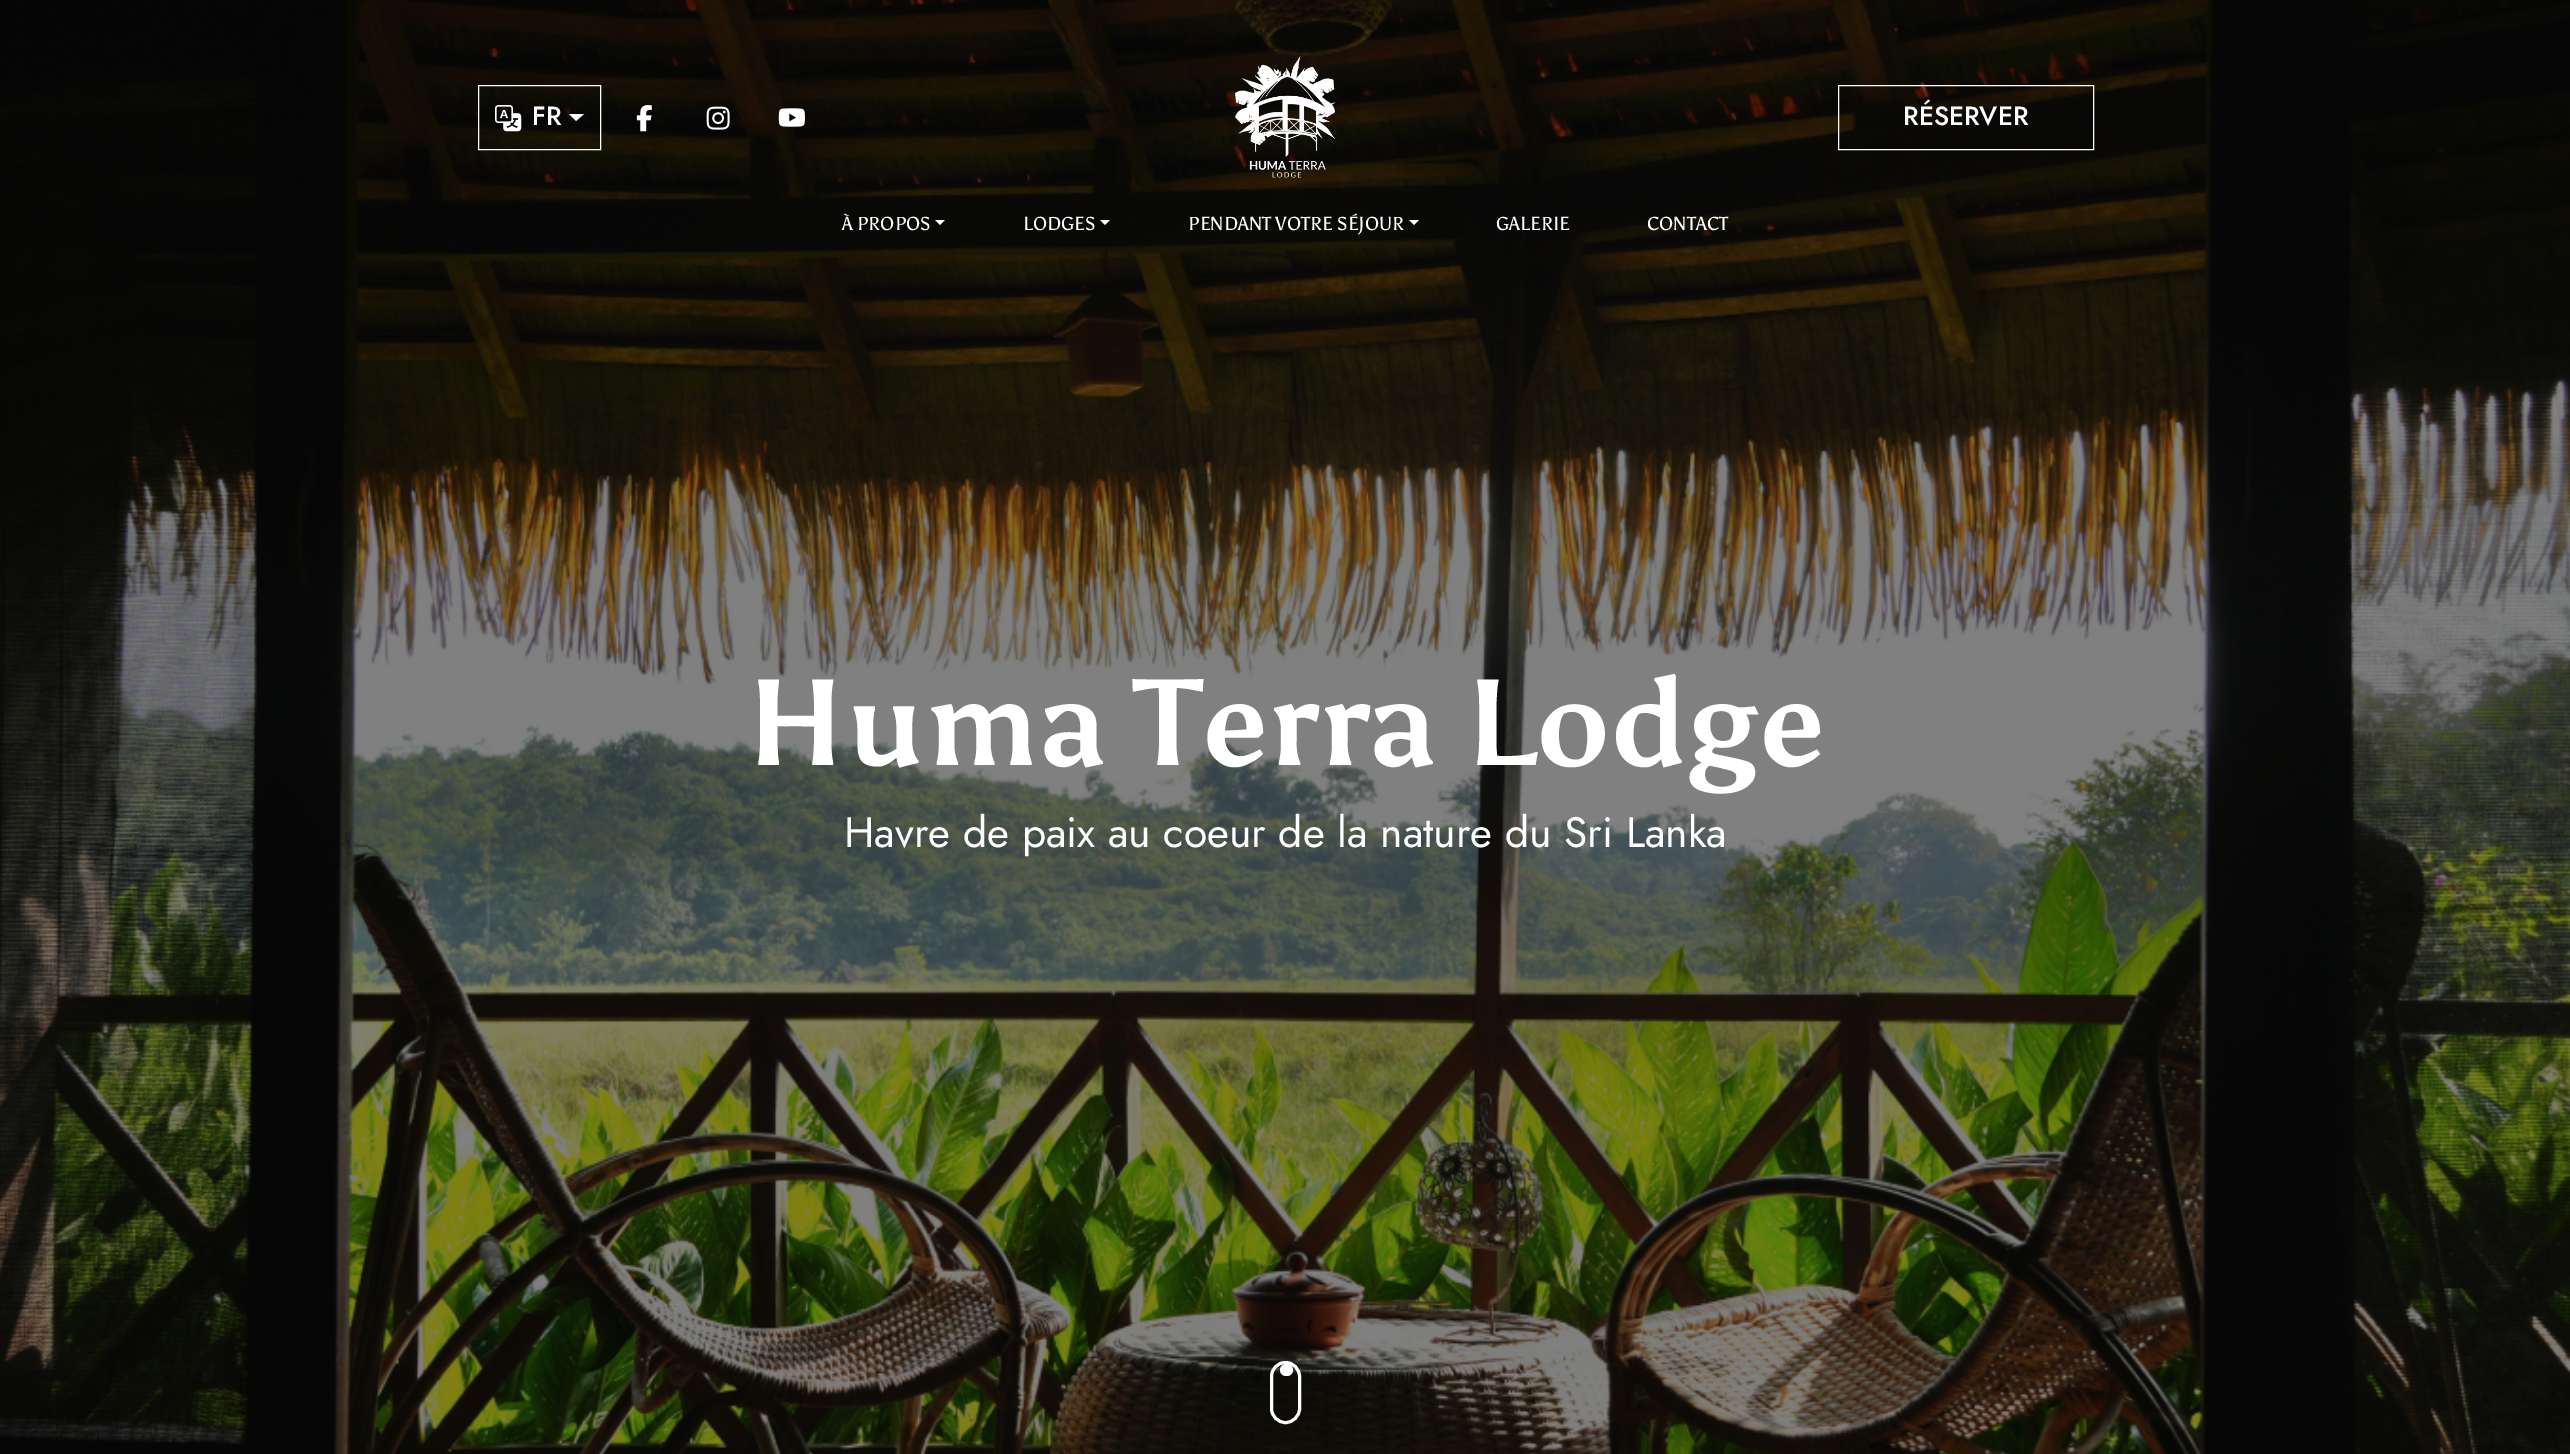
%!PS
<< /PageSize [2570 1454] >> setpagedevice
/rgb { 3 { 255 div 3 1 roll } repeat setrgbcolor } def
/font { [ exch dup neg 0 0 3 -1 roll 0 0 ] selectfont } def
/text { moveto show } def
/roundrect { 5 dict begin { /r /h /w /y /x } { exch def } forall
  x r add y moveto x w add y 2 copy h add r arct x w add y h add x 1 index r arct
  x y h add x y r arct x y 2 copy exch w add exch r arct closepath end } def
/picture { 5 dict begin { /h /w /y /x /name } { exch def } forall
  gsave x y translate w h scale
  w h 8 [w 0 0 h 0 0] name (r) file false 3 colorimage grestore end } def
0 1454 translate 1 -1 scale
4 setmiterlimit
255 255 255 rgb
0 0 2570 1454 rectfill
(img_01.rgb) 0 0 2570 1454 picture
478.5 85.5 122 64 rectstroke
(img_02.rgb) 495 105 27 27 picture
569 114 moveto 15 0 rlineto -8 7 rlineto closepath fill
(img_03.rgb) 636 105 16 27 picture
(img_04.rgb) 706 106 24 24 picture
(img_05.rgb) 778 108 27 19 picture
(img_06.rgb) 1235 56 100 122 picture
1838.5 85.5 255 64 rectstroke
935 220 moveto 10 0 rlineto -5 5 rlineto closepath fill
1100 220 moveto 10 0 rlineto -5 5 rlineto closepath fill
1409 220 moveto 10 0 rlineto -5 5 rlineto closepath fill
3 setlinewidth
1271.5 1362.5 28 60 14 roundrect stroke
1280 1364 13 12 6 roundrect fill
/Jost-Medium 26.25 font
(FR) 532 125 text
(RÉSERVER) 1903 125 text
/Asul-Regular 18.75 font
(À PROPOS) 842 230 text
(LODGES) 1023 230 text
(PENDANT VOTRE SÉJOUR) 1188 230 text
(GALERIE) 1496 230 text
(CONTACT) 1647 230 text
/Asul-Bold 122.5 font
(Huma Terra Lodge) 745 765 text
/Jost-Regular 42.5 font
(Havre de paix au coeur de la nature du Sri Lanka) 844 847 text
showpage
